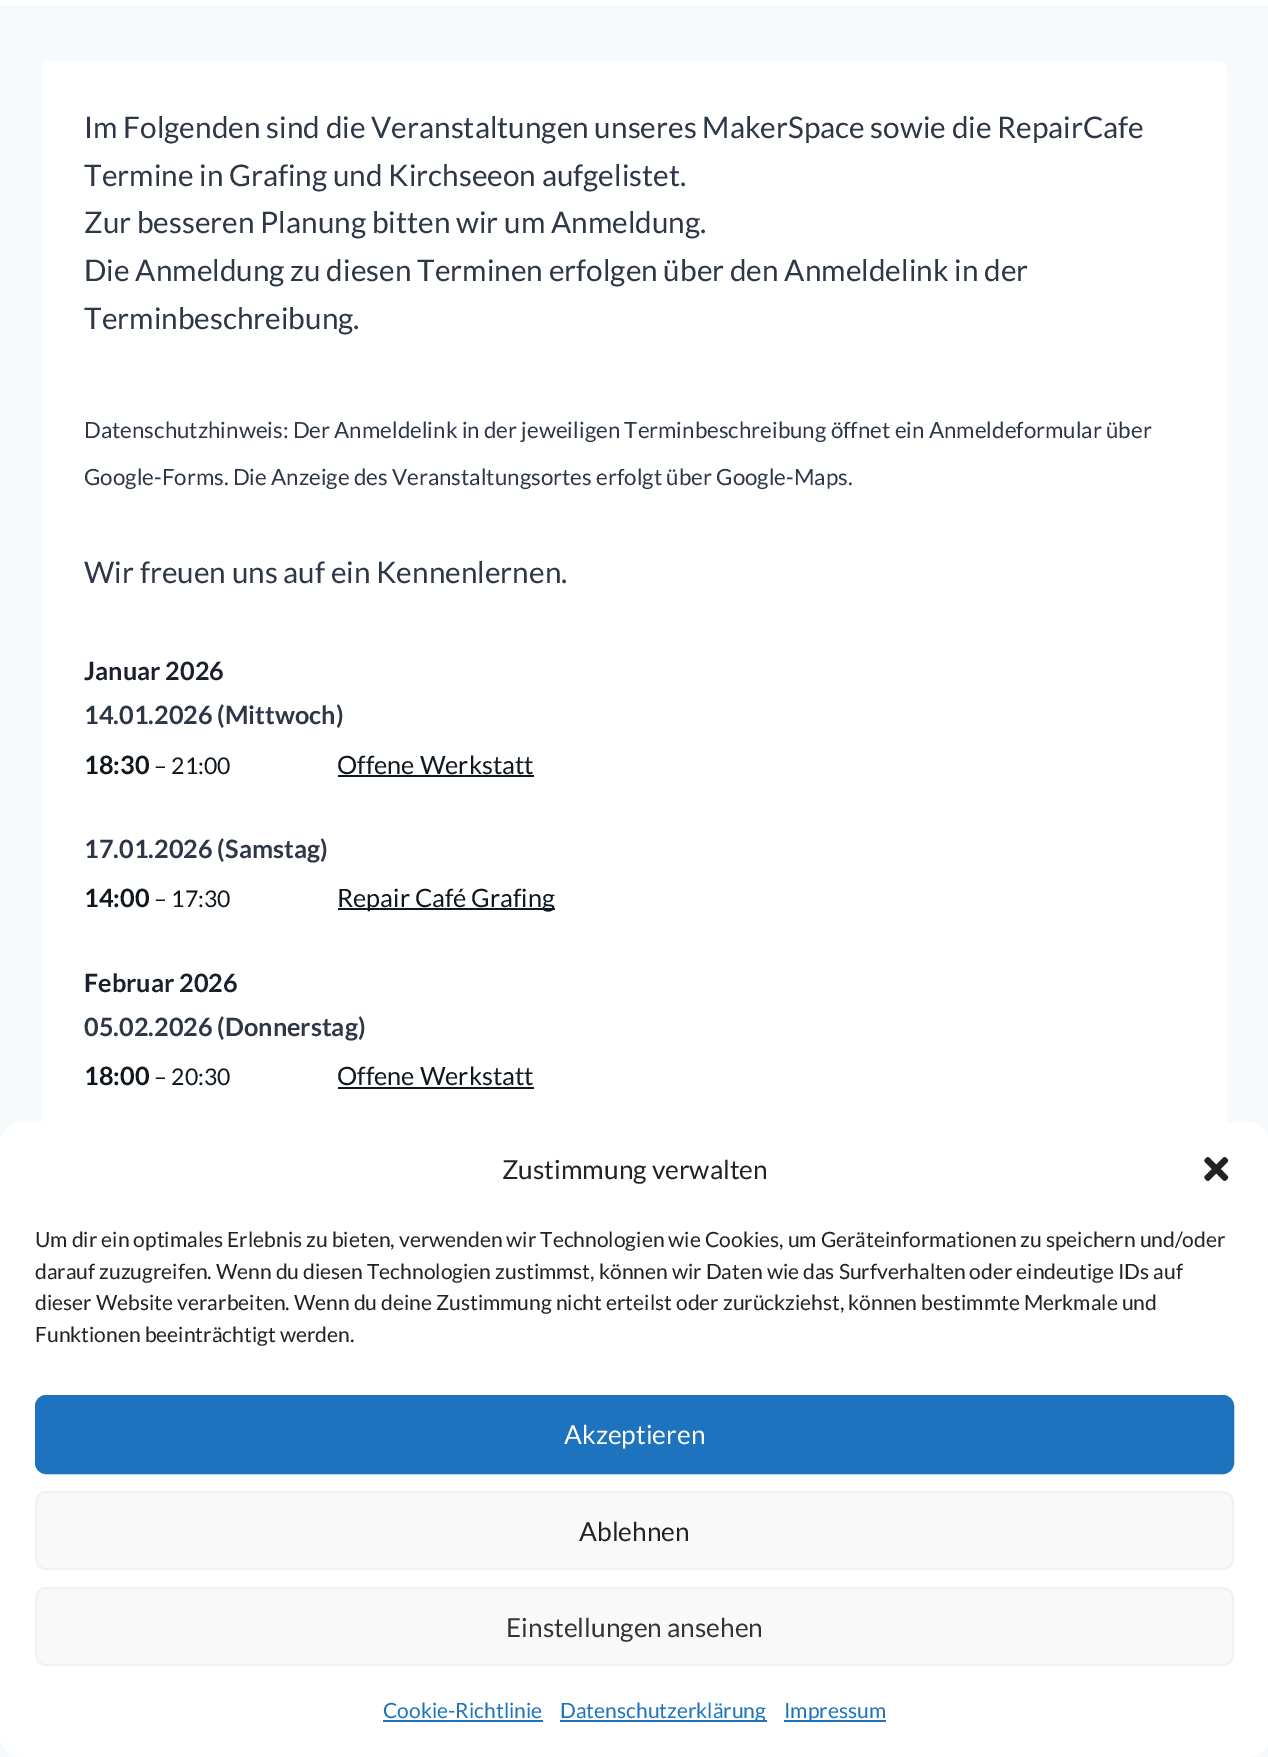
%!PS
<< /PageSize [1268 1757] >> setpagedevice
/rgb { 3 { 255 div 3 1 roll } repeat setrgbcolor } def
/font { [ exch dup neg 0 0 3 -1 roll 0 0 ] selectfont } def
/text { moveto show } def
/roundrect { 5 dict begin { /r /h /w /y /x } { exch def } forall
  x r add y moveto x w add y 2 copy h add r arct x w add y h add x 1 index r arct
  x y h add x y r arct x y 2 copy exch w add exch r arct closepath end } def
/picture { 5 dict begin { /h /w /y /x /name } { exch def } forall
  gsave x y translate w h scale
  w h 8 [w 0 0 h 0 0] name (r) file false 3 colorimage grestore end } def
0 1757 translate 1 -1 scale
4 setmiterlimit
247 250 252 rgb
0 0 1268 1757 rectfill
255 255 255 rgb
0 0 1268 5 rectfill
42 61 1185 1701 7 roundrect fill
16 24 31 rgb
338 775 196 2 rectfill
338 908 217 2 rectfill
338 1087 196 2 rectfill
255 255 255 rgb
0 1122 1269 635 21 roundrect fill
(img_01.rgb) 1204 1157 25 24 picture
30 115 190 rgb
36 1396 1197 77 10 roundrect gsave fill grestore
2 setlinewidth
stroke
249 249 249 rgb
36 1492 1197 77 10 roundrect gsave fill grestore
242 242 242 rgb
stroke
249 249 249 rgb
36 1588 1197 77 10 roundrect gsave fill grestore
242 242 242 rgb
stroke
30 115 190 rgb
383 1720 160 2 rectfill
560 1720 207 2 rectfill
784 1720 102 2 rectfill
/Lato-Regular 29.75 font
45 55 72 rgb
(Im Folgenden sind die Veranstaltungen unseres MakerSpace sowie die RepairCafe) 84 138 text
(Termine in Grafing und Kirchseeon aufgelistet.) 84 186 text
(Zur besseren Planung bitten wir um Anmeldung.) 84 233 text
(Die Anmeldung zu diesen Terminen erfolgen über den Anmeldelink in der) 84 281 text
(Terminbeschreibung.) 84 329 text
/Lato-Regular 22.3 font
(Datenschutzhinweis: Der Anmeldelink in der jeweiligen Terminbeschreibung öffnet ein Anmeldeformular über) 84 438 text
(Google-Forms. Die Anzeige des Veranstaltungsortes erfolgt über Google-Maps.) 84 485 text
/Lato-Regular 29.75 font
(Wir freuen uns auf ein Kennenlernen.) 84 583 text
/Lato-Bold 25.25 font
26 32 44 rgb
(Januar 2026) 84 680 text
45 55 72 rgb
(14.01.2026 \(Mittwoch\)) 84 724 text
16 24 31 rgb
(18:30) 84 774 text
/Lato-Regular 23 font
(– 21:00) 154 774 text
/Lato-Regular 25.25 font
(Offene Werkstatt) 337 774 text
/Lato-Bold 25.25 font
45 55 72 rgb
(17.01.2026 \(Samstag\)) 84 858 text
16 24 31 rgb
(14:00) 84 907 text
/Lato-Regular 23 font
(– 17:30) 154 907 text
/Lato-Regular 25.25 font
(Repair Café Grafing) 337 907 text
/Lato-Bold 25.25 font
26 32 44 rgb
(Februar 2026) 84 992 text
45 55 72 rgb
(05.02.2026 \(Donnerstag\)) 84 1036 text
16 24 31 rgb
(18:00) 84 1085 text
/Lato-Regular 23 font
(– 20:30) 154 1085 text
/Lato-Regular 25.25 font
(Offene Werkstatt) 337 1085 text
/Lato-Regular 26.25 font
34 34 34 rgb
(Zustimmung verwalten) 502 1179 text
/Lato-Regular 21 font
(Um dir ein optimales Erlebnis zu bieten, verwenden wir Technologien wie Cookies, um Geräteinformationen zu speichern und/oder) 35 1247 text
(darauf zuzugreifen. Wenn du diesen Technologien zustimmst, können wir Daten wie das Surfverhalten oder eindeutige IDs auf) 35 1279 text
(dieser Website verarbeiten. Wenn du deine Zustimmung nicht erteilst oder zurückziehst, können bestimmte Merkmale und) 35 1310 text
(Funktionen beeinträchtigt werden.) 35 1342 text
/Lato-Regular 26.25 font
255 255 255 rgb
(Akzeptieren) 564 1444 text
34 34 34 rgb
(Ablehnen) 579 1541 text
51 51 51 rgb
(Einstellungen ansehen) 506 1637 text
/Lato-Regular 21 font
30 115 190 rgb
(Cookie-Richtlinie) 383 1718 text
(Datenschutzerklärung) 560 1718 text
(Impressum) 784 1718 text
showpage
